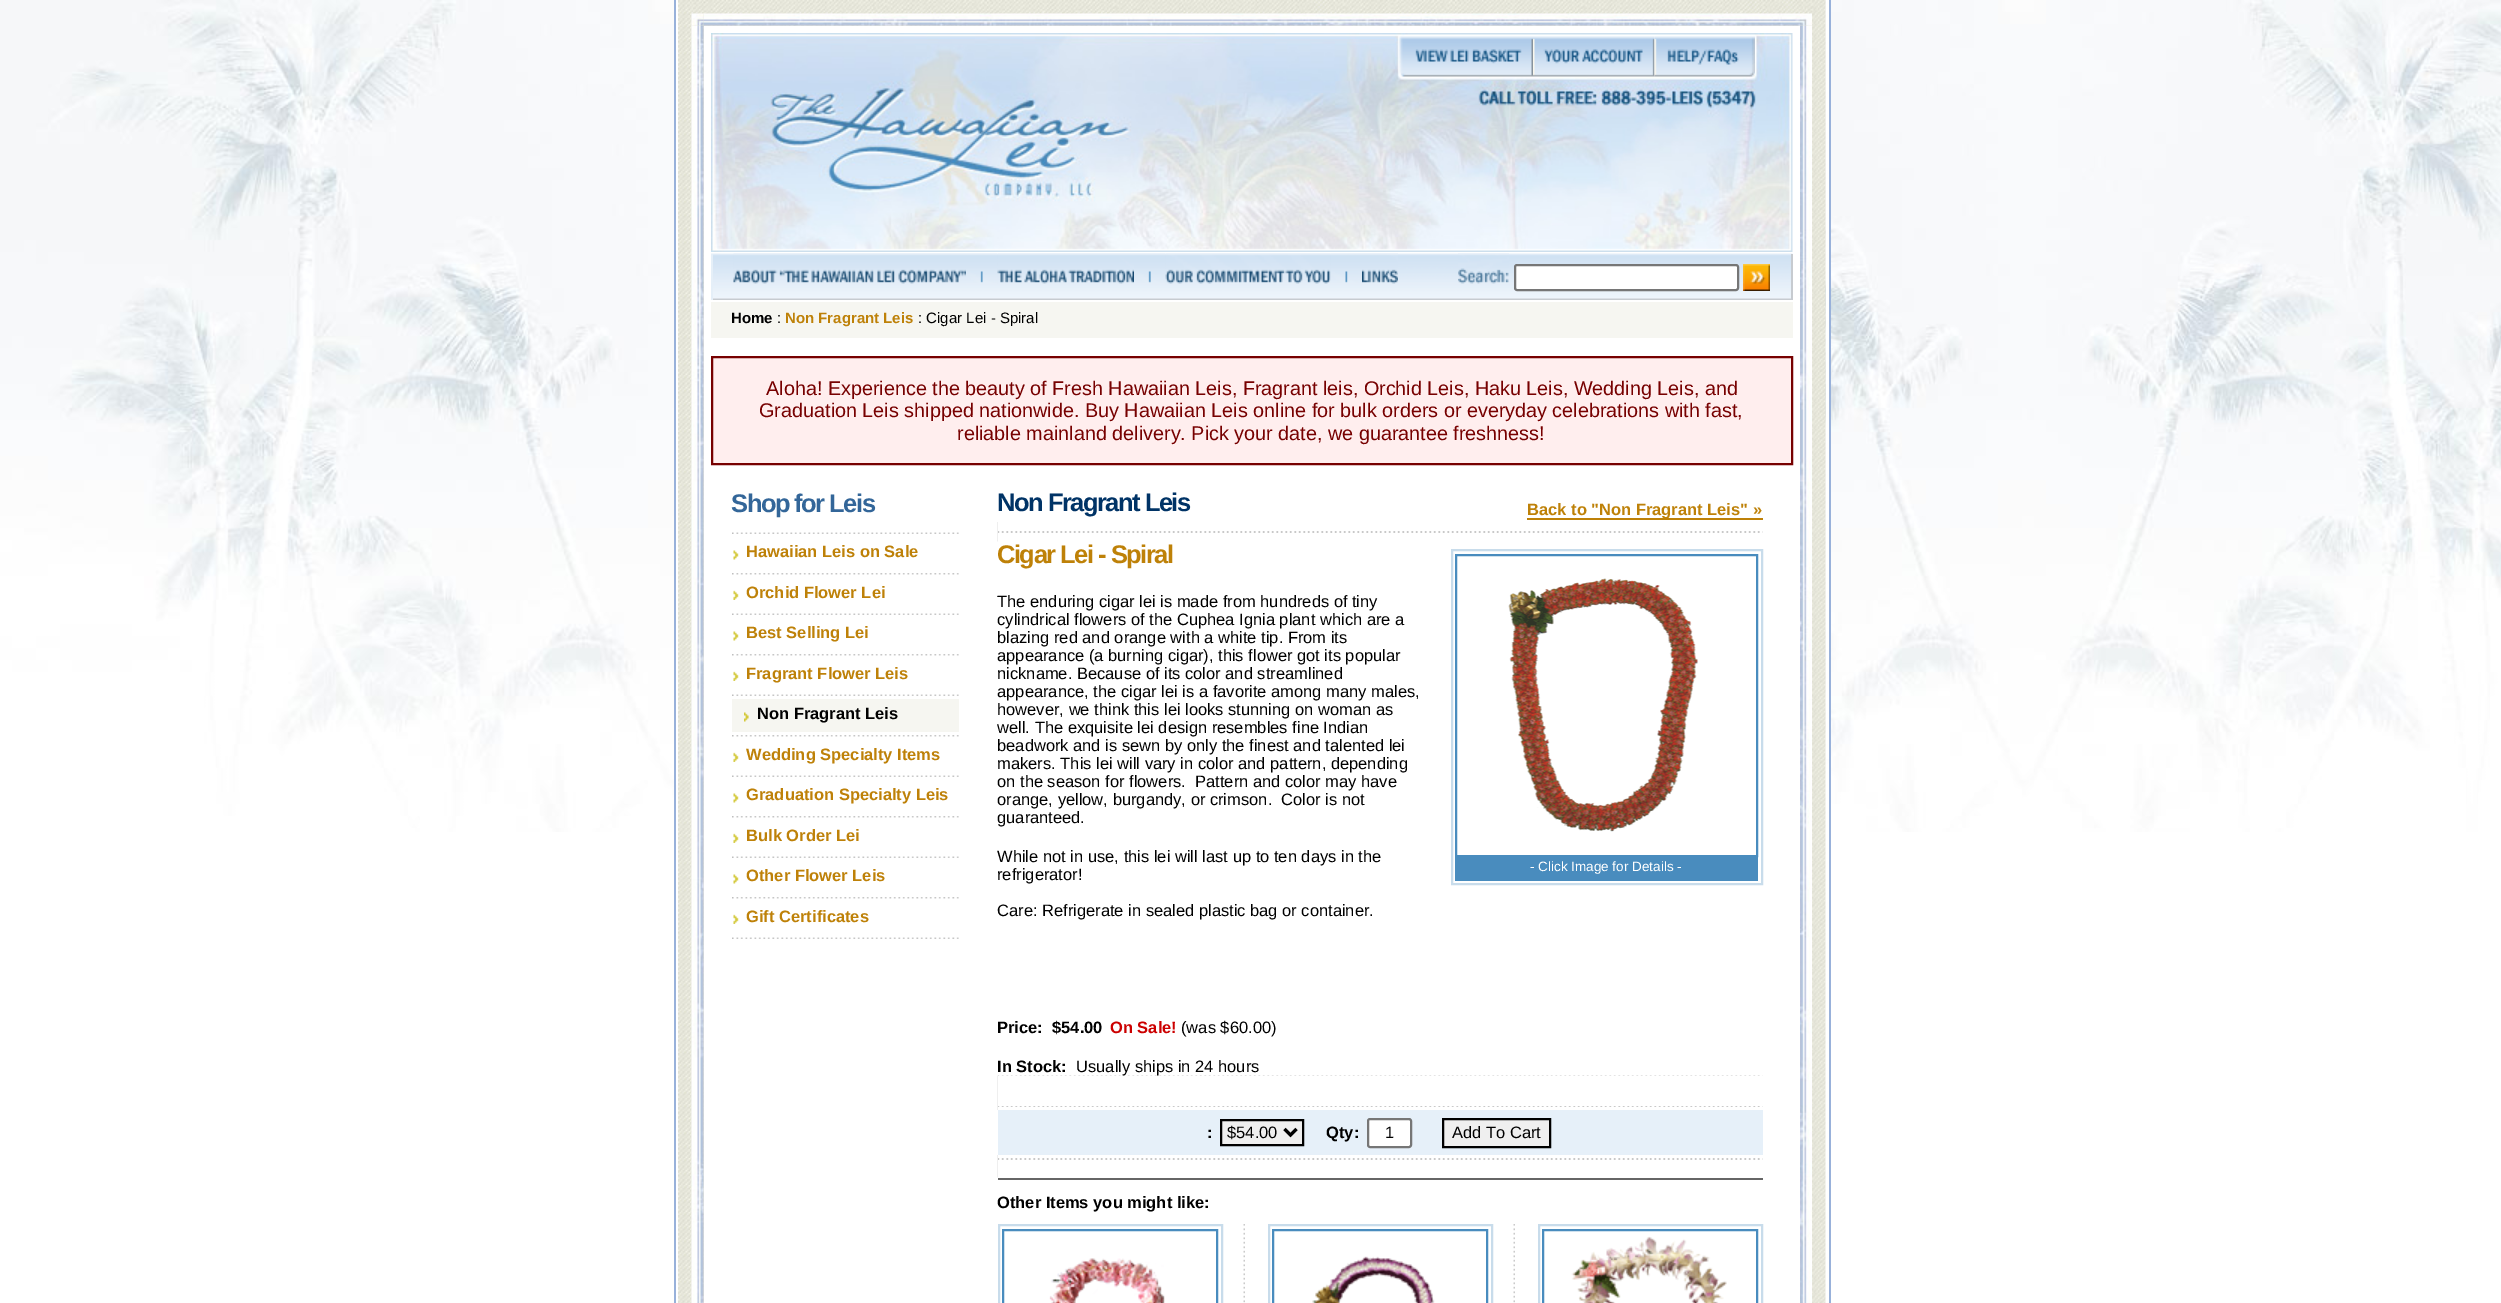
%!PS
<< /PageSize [2501 1303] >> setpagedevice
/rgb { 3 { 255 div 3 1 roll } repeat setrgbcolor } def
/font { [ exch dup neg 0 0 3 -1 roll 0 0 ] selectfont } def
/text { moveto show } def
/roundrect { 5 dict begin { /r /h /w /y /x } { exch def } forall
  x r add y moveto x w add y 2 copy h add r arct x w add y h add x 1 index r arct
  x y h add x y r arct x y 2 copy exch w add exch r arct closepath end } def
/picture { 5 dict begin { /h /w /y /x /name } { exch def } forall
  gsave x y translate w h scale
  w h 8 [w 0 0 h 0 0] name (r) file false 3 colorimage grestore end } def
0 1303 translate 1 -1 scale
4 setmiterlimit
255 255 255 rgb
0 0 2501 1303 rectfill
(img_01.rgb) 0 0 2501 832 picture
676 0 2 785 rectfill
152 177 218 rgb
674 0 2 1303 rectfill
(img_02.rgb) 678 0 1148 1303 picture
(img_04.rgb) 703 13 1097 13 picture
(img_06.rgb) 691 25 13 1278 picture
(img_03.rgb) 691 13 13 13 picture
(img_34.rgb) 1800 25 12 1278 picture
(img_05.rgb) 1800 13 12 13 picture
255 255 255 rgb
704 26 1096 1277 rectfill
(img_07.rgb) 711 33 1082 219 picture
(img_08.rgb) 1399 36 134 41 picture
(img_09.rgb) 1533 36 122 41 picture
(img_10.rgb) 1654 36 101 41 picture
(img_11.rgb) 711 253 1082 47 picture
199 203 208 rgb
1791 254 2 46 rectfill
229 239 248 rgb
711 254 2 46 rectfill
(img_12.rgb) 733 253 233 31 picture
(img_13.rgb) 966 253 31 30 picture
(img_14.rgb) 997 253 137 31 picture
(img_15.rgb) 1134 253 31 30 picture
(img_16.rgb) 1165 253 166 31 picture
(img_17.rgb) 1330 253 32 30 picture
(img_18.rgb) 1362 253 36 31 picture
(img_19.rgb) 1458 253 51 31 picture
255 255 255 rgb
1515 265 223 25 2 roundrect gsave fill grestore
118 118 118 rgb
2 setlinewidth
stroke
(img_20.rgb) 1743 264 27 27 picture
246 246 241 rgb
711 302 1082 36 rectfill
255 238 238 rgb
712 357 moveto 1080 0 rlineto 0 107 rlineto -1080 0 rlineto closepath gsave fill grestore
119 0 0 rgb
stroke
(img_21.rgb) 732 532 227 2 picture
(img_22.rgb) 733 550 6 10 picture
(img_23.rgb) 732 573 227 2 picture
(img_24.rgb) 733 590 6 10 picture
(img_21.rgb) 732 613 227 2 picture
(img_22.rgb) 733 631 6 10 picture
(img_23.rgb) 732 654 227 2 picture
(img_24.rgb) 733 671 6 10 picture
(img_21.rgb) 732 694 227 2 picture
246 246 241 rgb
732 699 227 33 rectfill
(img_25.rgb) 744 712 5 10 picture
(img_23.rgb) 732 735 227 2 picture
(img_24.rgb) 733 752 6 10 picture
(img_21.rgb) 732 775 227 2 picture
(img_22.rgb) 733 793 6 10 picture
(img_23.rgb) 732 816 227 2 picture
(img_24.rgb) 733 833 6 10 picture
(img_21.rgb) 732 856 227 2 picture
(img_22.rgb) 733 874 6 10 picture
(img_23.rgb) 732 897 227 2 picture
(img_24.rgb) 733 914 6 10 picture
(img_21.rgb) 732 937 227 2 picture
190 129 8 rgb
1527 518 236 2 rectfill
(img_26.rgb) 997 522 766 20 picture
255 255 255 rgb
998 522 765 9 rectfill
998 533 765 9 rectfill
200 220 235 rgb
1452 550 310 334 rectstroke
73 140 190 rgb
1456 555 301 301 rectstroke
(img_27.rgb) 1508 578 190 254 picture
1455 857 303 24 rectfill
(img_28.rgb) 997 1075 766 35 picture
255 255 255 rgb
998 1076 765 30 rectfill
998 1107 765 3 rectfill
230 240 249 rgb
998 1110 765 45 rectfill
239 239 239 rgb
1221 1120 moveto 82 0 rlineto 0 25 rlineto -82 0 rlineto closepath gsave fill grestore
0 0 0 rgb
stroke
3 setlinewidth
1284.5 1129 moveto 6 6 rlineto 6 -6 rlineto stroke
255 255 255 rgb
1368 1119 43 28 2 roundrect gsave fill grestore
118 118 118 rgb
2 setlinewidth
stroke
239 239 239 rgb
1443 1119 moveto 107 0 rlineto 0 28 rlineto -107 0 rlineto closepath gsave fill grestore
0 0 0 rgb
stroke
(img_29.rgb) 997 1155 766 23 picture
255 255 255 rgb
998 1155 765 3 rectfill
998 1160 765 18 rectfill
102 102 102 rgb
998 1178 765 2 rectfill
200 220 235 rgb
999 1225 223 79 rectstroke
73 140 190 rgb
1003 1230 214 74 rectstroke
(img_30.rgb) 1049 1258 116 45 picture
(img_31.rgb) 1243 1224 2 79 picture
200 220 235 rgb
1269 1225 223 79 rectstroke
73 140 190 rgb
1273 1230 214 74 rectstroke
(img_32.rgb) 1312 1256 123 47 picture
(img_31.rgb) 1513 1224 2 79 picture
200 220 235 rgb
1539 1225 223 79 rectstroke
73 140 190 rgb
1543 1230 214 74 rectstroke
(img_33.rgb) 1571 1236 156 67 picture
255 255 255 rgb
1826 0 3 759 rectfill
152 177 218 rgb
1829 0 2 1303 rectfill
/LiberationSans-Bold 15 font
0 0 0 rgb
(Home) 731 323 text
/LiberationSans-Regular 15 font
(:) 777 323 text
/LiberationSans-Bold 15 font
190 129 8 rgb
(Non Fragrant Leis) 785 323 text
/LiberationSans-Regular 15 font
0 0 0 rgb
(: Cigar Lei - Spiral) 918 323 text
/LiberationSans-Regular 19.8 font
119 0 0 rgb
(Aloha! Experience the beauty of Fresh Hawaiian Leis, Fragrant leis, Orchid Leis, Haku Leis, Wedding Leis, and) 766 395 text
(Graduation Leis shipped nationwide. Buy Hawaiian Leis online for bulk orders or everyday celebrations with fast,) 759 417 text
(reliable mainland delivery. Pick your date, we guarantee freshness!) 957 440 text
/LiberationSans-Bold 25.5 font
51 102 153 rgb
731 512 moveto -1.5 0 (Shop for Leis) ashow
/LiberationSans-Bold 16.5 font
190 129 8 rgb
(Hawaiian Leis on Sale) 746 557 text
(Orchid Flower Lei) 746 598 text
(Best Selling Lei) 746 638 text
(Fragrant Flower Leis) 746 679 text
0 0 0 rgb
(Non Fragrant Leis) 757 719 text
190 129 8 rgb
(Wedding Specialty Items) 746 760 text
(Graduation Specialty Leis) 746 800 text
(Bulk Order Lei) 746 841 text
(Other Flower Leis) 746 881 text
(Gift Certificates) 746 922 text
/LiberationSans-Bold 25.5 font
0 51 102 rgb
997 511 moveto -1.5 0 (Non Fragrant Leis) ashow
/LiberationSans-Bold 16.5 font
190 129 8 rgb
(Back to "Non Fragrant Leis" ») 1527 515 text
/LiberationSans-Bold 25.5 font
997 563 moveto -1.5 0 (Cigar Lei - Spiral) ashow
/LiberationSans-Regular 16.5 font
0 0 0 rgb
(The enduring cigar lei is made from hundreds of tiny) 997 607 text
(cylindrical flowers of the Cuphea Ignia plant which are a) 997 625 text
(blazing red and orange with a white tip. From its) 997 643 text
(appearance \(a burning cigar\), this flower got its popular) 997 661 text
(nickname. Because of its color and streamlined) 997 679 text
(appearance, the cigar lei is a favorite among many males,) 997 697 text
(however, we think this lei looks stunning on woman as) 997 715 text
(well. The exquisite lei design resembles fine Indian) 997 733 text
(beadwork and is sewn by only the finest and talented lei) 997 751 text
(makers. This lei will vary in color and pattern, depending) 997 769 text
(on the season for flowers.  Pattern and color may have) 997 787 text
(orange, yellow, burgandy, or crimson.  Color is not) 997 805 text
(guaranteed.) 997 823 text
(While not in use, this lei will last up to ten days in the) 997 862 text
(refrigerator!) 997 880 text
(Care: Refrigerate in sealed plastic bag or container.) 997 916 text
/LiberationSans-Regular 13.5 font
255 255 255 rgb
(- Click Image for Details -) 1530 871 text
/LiberationSans-Bold 16.5 font
0 0 0 rgb
(Price:) 997 1033 text
($54.00) 1052 1033 text
204 0 0 rgb
(On Sale!) 1110 1033 text
/LiberationSans-Regular 16.5 font
0 0 0 rgb
(\(was $60.00\)) 1181 1033 text
/LiberationSans-Bold 16.5 font
(In Stock:) 997 1072 text
/LiberationSans-Regular 16.5 font
(Usually ships in 24 hours) 1076 1072 text
/LiberationSans-Bold 16.5 font
(:) 1207 1138 text
/LiberationSans-Regular 16.5 font
($54.00) 1227 1138 text
/LiberationSans-Bold 16.5 font
(Qty:) 1326 1138 text
/LiberationSans-Regular 16.5 font
(1) 1385 1138 text
(Add To Cart) 1452 1138 text
/LiberationSans-Bold 16.5 font
(Other Items you might like:) 997 1208 text
showpage
